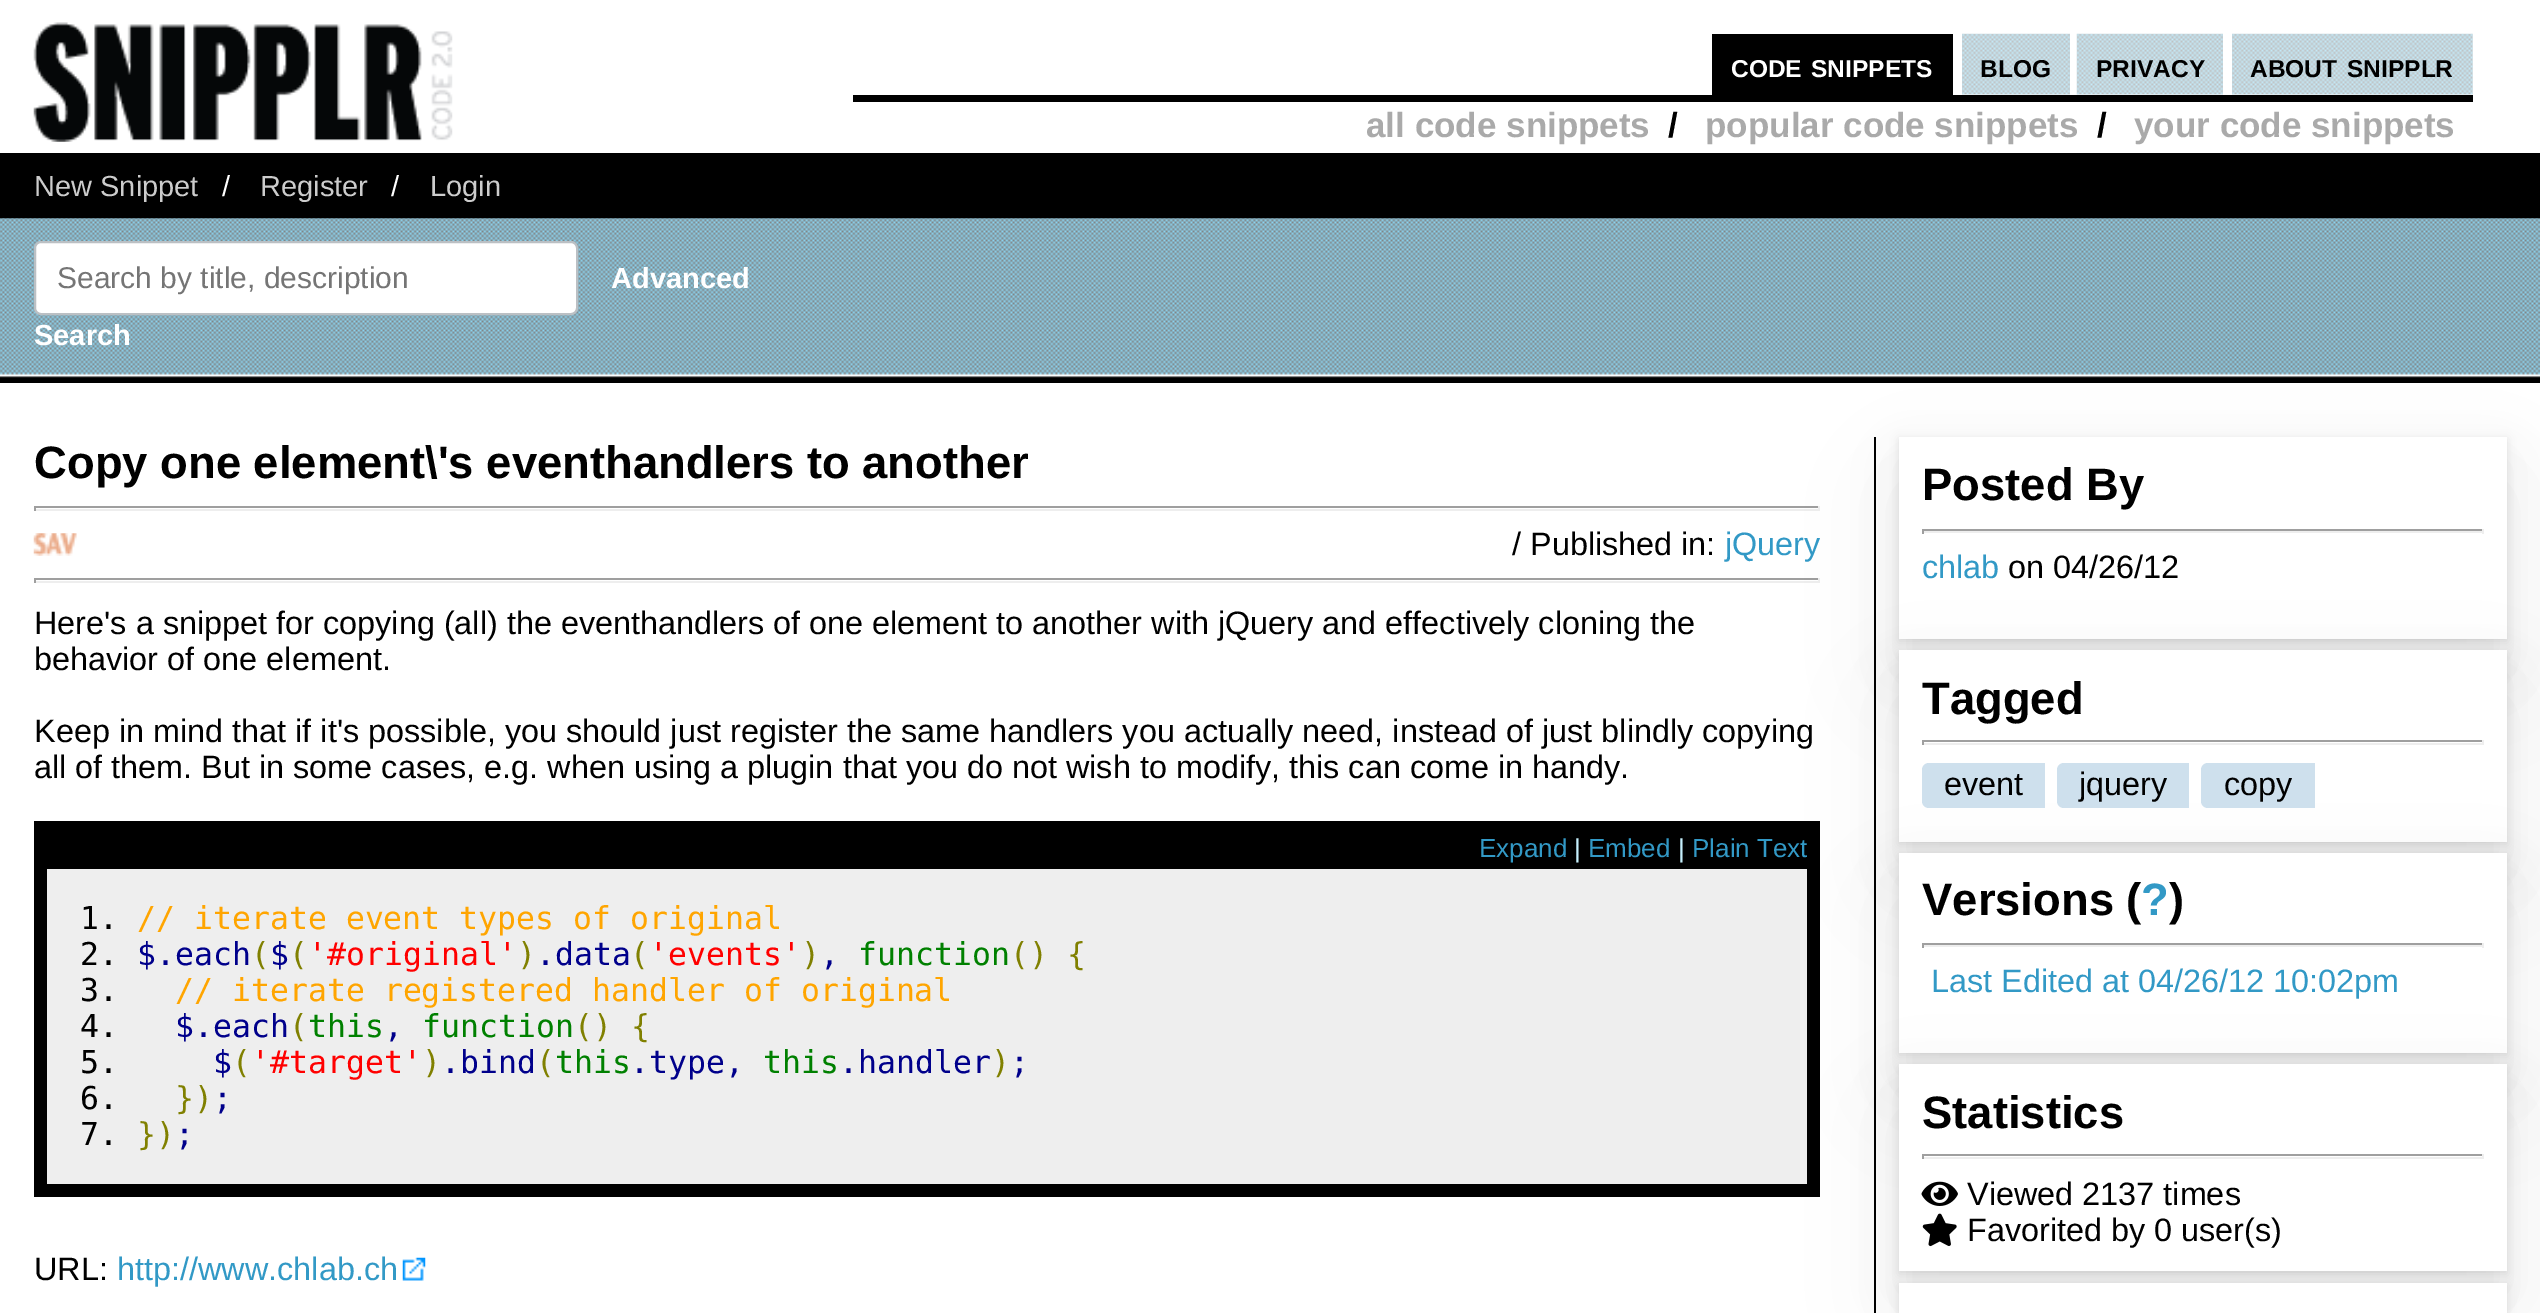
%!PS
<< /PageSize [2540 1313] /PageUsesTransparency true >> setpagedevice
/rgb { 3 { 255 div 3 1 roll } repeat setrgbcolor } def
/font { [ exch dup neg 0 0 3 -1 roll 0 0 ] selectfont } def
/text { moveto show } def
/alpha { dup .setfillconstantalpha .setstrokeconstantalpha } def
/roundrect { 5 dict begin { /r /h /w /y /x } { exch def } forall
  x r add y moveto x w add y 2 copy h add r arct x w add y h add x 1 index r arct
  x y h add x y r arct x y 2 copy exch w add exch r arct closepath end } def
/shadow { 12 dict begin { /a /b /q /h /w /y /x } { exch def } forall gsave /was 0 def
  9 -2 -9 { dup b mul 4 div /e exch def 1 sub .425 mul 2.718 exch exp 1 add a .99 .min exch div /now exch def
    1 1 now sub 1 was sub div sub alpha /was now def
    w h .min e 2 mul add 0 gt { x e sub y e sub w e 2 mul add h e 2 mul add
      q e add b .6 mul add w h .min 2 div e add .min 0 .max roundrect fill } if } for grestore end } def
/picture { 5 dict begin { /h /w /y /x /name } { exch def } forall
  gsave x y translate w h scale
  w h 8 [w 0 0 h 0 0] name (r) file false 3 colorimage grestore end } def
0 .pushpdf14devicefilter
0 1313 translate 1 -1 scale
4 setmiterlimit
0 0 0 rgb
0 0 2540 1313 rectfill
255 255 255 rgb
0 0 2540 153 rectfill
(img_01.rgb) 33 22 420 120 picture
0 0 0 rgb
853 95 1620 7 rectfill
(img_02.rgb) 1962 33 108 62 picture
(img_03.rgb) 2076 33 147 62 picture
(img_04.rgb) 2232 33 241 62 picture
1712 34 241 61 rectfill
(img_05.rgb) 0 218 2540 160 picture
255 255 255 rgb
35 242 542 72 6 roundrect gsave fill grestore
187 192 196 rgb
2 setlinewidth
stroke
255 255 255 rgb
0 383 2540 930 rectfill
0 0 0 rgb
1874 437 2 876 rectfill
159 159 159 rgb
34 506 1786 2 rectfill
238 238 238 rgb
1818 506 2 5 rectfill
34 509 1786 2 rectfill
159 159 159 rgb
34 506 2 5 rectfill
(img_06.rgb) 33 533 44 23 picture
34 578 1786 2 rectfill
238 238 238 rgb
1818 578 2 5 rectfill
34 581 1786 2 rectfill
159 159 159 rgb
34 578 2 5 rectfill
0 0 0 rgb
34 821 1786 376 rectfill
238 238 238 rgb
47 869 1760 315 rectfill
(img_07.rgb) 402 1257 24 24 picture
0 0 0 rgb
1899 439 608 202 0 4.5 0.1 shadow
1899 482 608 202 0 54 0.05 shadow
1899 459 608 203 0 28 0.05 shadow
255 255 255 rgb
1899 437 608 202 rectfill
159 159 159 rgb
1922 529 562 2 rectfill
0 0 0 rgb
1899 695 608 192 0 54 0.05 shadow
238 238 238 rgb
2482 529 2 5 rectfill
1922 531 562 2 rectfill
159 159 159 rgb
1922 529 2 5 rectfill
0 0 0 rgb
1899 653 608 191 0 4.5 0.1 shadow
1899 673 608 191 0 28 0.05 shadow
255 255 255 rgb
1899 650 608 192 rectfill
0 0 0 rgb
1899 898 608 200 0 54 0.05 shadow
159 159 159 rgb
1922 740 562 2 rectfill
238 238 238 rgb
2482 740 2 5 rectfill
1922 743 562 2 rectfill
159 159 159 rgb
1922 740 2 5 rectfill
0 0 0 rgb
1899 875 608 201 0 28 0.05 shadow
206 224 237 rgb
1929 763 moveto 116 0 rlineto 0 45 rlineto -116 0 rlineto -4 0 -7 -3 -7 -7 rcurveto 0 -31 rlineto 0 -4 3 -7 7 -7 rcurveto closepath fill
2064 763 moveto 125 0 rlineto 0 45 rlineto -125 0 rlineto -4 0 -7 -3 -7 -7 rcurveto 0 -31 rlineto 0 -4 3 -7 7 -7 rcurveto closepath fill
2208 763 moveto 107 0 rlineto 0 45 rlineto -107 0 rlineto -4 0 -7 -3 -7 -7 rcurveto 0 -31 rlineto 0 -4 3 -7 7 -7 rcurveto closepath fill
0 0 0 rgb
1899 855 608 200 0 4.5 0.1 shadow
255 255 255 rgb
1899 853 608 200 rectfill
159 159 159 rgb
1922 943 562 2 rectfill
0 0 0 rgb
1899 1109 608 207 0 54 0.05 shadow
238 238 238 rgb
2482 943 2 5 rectfill
1922 945 562 2 rectfill
159 159 159 rgb
1922 943 2 5 rectfill
0 0 0 rgb
1899 1067 608 207 0 4.5 0.1 shadow
1899 1087 608 207 0 28 0.05 shadow
255 255 255 rgb
1899 1064 608 207 rectfill
159 159 159 rgb
1922 1154 562 2 rectfill
238 238 238 rgb
2482 1154 2 5 rectfill
1922 1157 562 2 rectfill
159 159 159 rgb
1922 1154 2 5 rectfill
(img_08.rgb) 1921 1181 37 25 picture
(img_09.rgb) 1922 1213 35 34 picture
0 0 0 rgb
1899 1285 608 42 0 4.5 0.1 shadow
255 255 255 rgb
1899 1283 608 30 rectfill
/LiberationSans-Bold 24.5 font
(CODE) 1731 77 text
(SNIPPETS) 1811 77 text
/LiberationSans-Bold 35 font
170 170 170 rgb
(all code snippets) 1366 137 text
0 0 0 rgb
(/) 1668 137 text
170 170 170 rgb
(popular code snippets) 1705 137 text
0 0 0 rgb
(/) 2097 137 text
170 170 170 rgb
(your code snippets) 2134 137 text
/LiberationSans-Bold 24.5 font
0 0 0 rgb
(BLOG) 1980 77 text
(PRIVACY) 2096 77 text
(ABOUT) 2250 77 text
(SNIPPLR) 2347 77 text
/LiberationSans-Regular 29 font
204 204 204 rgb
(New Snippet) 34 196 text
255 255 255 rgb
(/) 222 196 text
204 204 204 rgb
(Register) 260 196 text
255 255 255 rgb
(/) 391 196 text
204 204 204 rgb
(Login) 430 196 text
/LiberationSans-Regular 30 font
117 117 117 rgb
(Search by title, description) 57 288 text
/LiberationSans-Bold 29 font
255 255 255 rgb
(Advanced) 611 288 text
(Search) 34 345 text
/LiberationSans-Bold 45.4 font
0 0 0 rgb
(Copy one element\\'s eventhandlers to another) 34 478 text
/LiberationSans-Regular 32.4 font
(/ Published in:) 1512 555 text
50 153 198 rgb
(jQuery) 1725 555 text
0 0 0 rgb
(Here's a snippet for copying \(all\) the eventhandlers of one element to another with jQuery and effectively cloning the) 34 634 text
(behavior of one element.) 34 670 text
(Keep in mind that if it's possible, you should just register the same handlers you actually need, instead of just blindly copying) 34 742 text
(all of them. But in some cases, e.g. when using a plugin that you do not wish to modify, this can come in handy.) 34 778 text
/LiberationSans-Regular 26 font
50 153 198 rgb
(Expand) 1479 857 text
197 239 252 rgb
(|) 1574 857 text
50 153 198 rgb
(Embed) 1588 857 text
197 239 252 rgb
(|) 1678 857 text
50 153 198 rgb
(Plain Text) 1692 857 text
/DejaVuSansMono-Regular 31.5 font
0 0 0 rgb
(1.) 80 929 text
255 165 0 rgb
(// iterate event types of original) 137 929 text
0 0 0 rgb
(2.) 80 965 text
0 0 139 rgb
($.each $) 137 965 text
255 0 0 rgb
('#original') 308 965 text
128 128 0 rgb
(\( \() 251 965 text
(\)) 517 965 text
0 0 139 rgb
(.data) 536 965 text
128 128 0 rgb
(\() 630 965 text
255 0 0 rgb
('events') 649 965 text
128 128 0 rgb
(\)) 801 965 text
0 0 139 rgb
(,) 820 965 text
0 128 0 rgb
(function) 858 965 text
128 128 0 rgb
(\(\) {) 1010 965 text
0 0 0 rgb
(3.) 80 1001 text
255 165 0 rgb
(// iterate registered handler of original) 175 1001 text
0 0 0 rgb
(4.) 80 1037 text
0 0 139 rgb
($.each) 175 1037 text
128 128 0 rgb
(\() 289 1037 text
0 128 0 rgb
(this) 308 1037 text
0 0 139 rgb
(,) 384 1037 text
0 128 0 rgb
(function) 422 1037 text
128 128 0 rgb
(\(\) {) 574 1037 text
0 0 0 rgb
(5.) 80 1073 text
0 0 139 rgb
($) 213 1073 text
128 128 0 rgb
(\() 232 1073 text
(\)) 422 1073 text
0 0 139 rgb
(.bind) 441 1073 text
128 128 0 rgb
(\() 536 1073 text
0 128 0 rgb
(this) 555 1073 text
(this) 763 1073 text
0 0 139 rgb
(.handler ;) 839 1073 text
255 0 0 rgb
('#target') 251 1073 text
0 0 139 rgb
(.type,) 630 1073 text
128 128 0 rgb
(\)) 991 1073 text
0 0 0 rgb
(6.) 80 1109 text
128 128 0 rgb
(}\)) 175 1109 text
0 0 139 rgb
(;) 213 1109 text
0 0 0 rgb
(7.) 80 1145 text
128 128 0 rgb
(}\)) 137 1145 text
0 0 139 rgb
(;) 175 1145 text
/LiberationSans-Regular 32.4 font
0 0 0 rgb
(URL:) 34 1280 text
50 153 198 rgb
(http://www.chlab.ch) 117 1280 text
/LiberationSans-Bold 45.4 font
0 0 0 rgb
(Posted By) 1922 500 text
/LiberationSans-Regular 32.4 font
50 153 198 rgb
(chlab) 1922 578 text
0 0 0 rgb
(on 04/26/12) 2008 578 text
/LiberationSans-Bold 45.4 font
(Tagged) 1922 714 text
/LiberationSans-Regular 32.4 font
(event) 1944 795 text
(jquery) 2079 795 text
(copy) 2224 795 text
/LiberationSans-Bold 45.4 font
(Versions \() 1922 915 text
50 153 198 rgb
(?) 2141 915 text
0 0 0 rgb
(\)) 2169 915 text
/LiberationSans-Regular 32.4 font
50 153 198 rgb
(Last Edited at 04/26/12 10:02pm) 1931 992 text
/LiberationSans-Bold 45.4 font
0 0 0 rgb
(Statistics) 1922 1128 text
/LiberationSans-Regular 32.4 font
(Viewed 2137 times) 1967 1205 text
(Favorited by 0 user\(s\)) 1967 1241 text
.poppdf14devicefilter showpage
